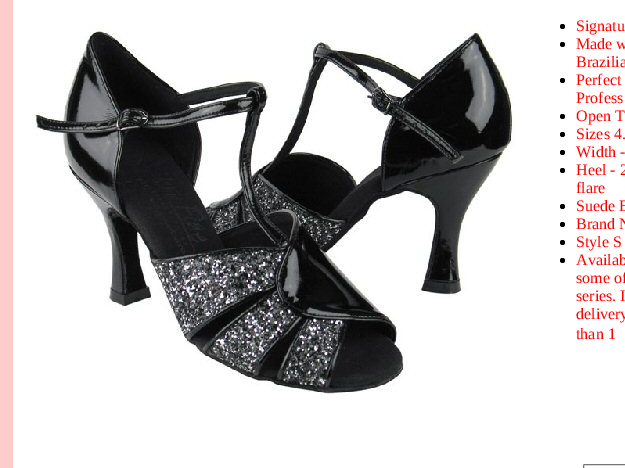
%!PS
<< /PageSize [625 468] >> setpagedevice
/rgb { 3 { 255 div 3 1 roll } repeat setrgbcolor } def
/font { [ exch dup neg 0 0 3 -1 roll 0 0 ] selectfont } def
/text { moveto show } def
/circle { newpath 0 360 arc closepath } def
/roundrect { 5 dict begin { /r /h /w /y /x } { exch def } forall
  x r add y moveto x w add y 2 copy h add r arct x w add y h add x 1 index r arct
  x y h add x y r arct x y 2 copy exch w add exch r arct closepath end } def
/picture { 5 dict begin { /h /w /y /x /name } { exch def } forall
  gsave x y translate w h scale
  w h 8 [w 0 0 h 0 0] name (r) file false 3 colorimage grestore end } def
0 468 translate 1 -1 scale
4 setmiterlimit
255 204 204 rgb
0 0 625 468 rectfill
255 255 255 rgb
13 0 612 468 rectfill
(img_01.rgb) 32 24 483 376 picture
0 0 0 rgb
562.5 26.5 2.5 circle fill
562.5 44.5 2.5 circle fill
562.5 80.5 2.5 circle fill
562.5 116.5 2.5 circle fill
562.5 134.5 2.5 circle fill
562.5 152.5 2.5 circle fill
562.5 170.5 2.5 circle fill
562.5 206.5 2.5 circle fill
562.5 224.5 2.5 circle fill
562.5 242.5 2.5 circle fill
562.5 260.5 2.5 circle fill
118 118 118 rgb
583.5 464.5 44 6 1.5 roundrect stroke
/LiberationSerif-Regular 16 font
255 0 0 rgb
(Signatu) 576 31 text
(Made w) 576 49 text
(Brazilia) 576 67 text
(Perfect) 576 85 text
(Profess) 576 103 text
(Open T) 576 121 text
(Sizes 4.) 576 139 text
(Width -) 576 157 text
(Heel - 2) 576 175 text
(flare) 576 193 text
(Suede B) 576 211 text
(Brand N) 576 229 text
(Style S) 576 247 text
(Availab) 576 265 text
(some of) 576 283 text
(series. I) 576 301 text
(delivery) 576 319 text
(than 1) 576 339 text
showpage
